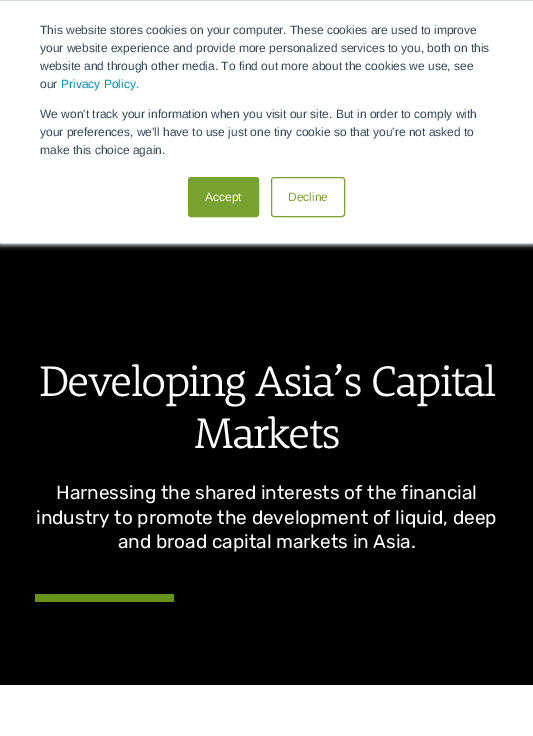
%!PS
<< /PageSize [533 736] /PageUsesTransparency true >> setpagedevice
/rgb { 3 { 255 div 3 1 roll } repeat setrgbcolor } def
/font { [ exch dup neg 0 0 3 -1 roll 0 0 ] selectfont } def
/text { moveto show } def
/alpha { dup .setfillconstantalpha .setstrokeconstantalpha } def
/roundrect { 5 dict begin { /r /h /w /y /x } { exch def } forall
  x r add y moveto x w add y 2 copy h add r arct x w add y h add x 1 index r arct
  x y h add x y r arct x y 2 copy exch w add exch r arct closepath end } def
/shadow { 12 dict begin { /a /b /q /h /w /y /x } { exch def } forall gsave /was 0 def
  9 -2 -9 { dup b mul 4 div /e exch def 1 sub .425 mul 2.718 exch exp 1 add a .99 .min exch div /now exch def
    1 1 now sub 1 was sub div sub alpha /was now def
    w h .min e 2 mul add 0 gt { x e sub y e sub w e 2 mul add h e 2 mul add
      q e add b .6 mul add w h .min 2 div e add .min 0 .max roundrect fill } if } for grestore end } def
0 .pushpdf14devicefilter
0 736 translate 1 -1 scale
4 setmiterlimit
255 255 255 rgb
0 0 533 736 rectfill
0 0 0 rgb
0 244 533 441 rectfill
234 240 246 rgb
0 1 533 244 0 2.5 1 shadow
255 255 255 rgb
0 1 533 242 rectfill
203 214 226 rgb
0 0 533 1 rectfill
0 243 533 1 rectfill
120 162 47 rgb
188.5 177.5 70 39 2.5 roundrect gsave fill grestore
stroke
271.5 177.5 73 39 2.5 roundrect stroke
104 147 27 rgb
35 594 139 8 rectfill
/LiberationSans-Regular 12 font
51 71 91 rgb
(This website stores cookies on your computer. These cookies are used to improve) 40 34 text
(your website experience and provide more personalized services to you, both on this) 40 52 text
(website and through other media. To find out more about the cookies we use, see) 40 70 text
(our) 40 88 text
0 145 174 rgb
(Privacy Policy.) 61 88 text
51 71 91 rgb
(We won't track your information when you visit our site. But in order to comply with) 40 118 text
(your preferences, we'll have to use just one tiny cookie so that you're not asked to) 40 136 text
(make this choice again.) 40 154 text
255 255 255 rgb
(Accept) 205 201 text
120 162 47 rgb
(Decline) 288 201 text
/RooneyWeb-Light 44 font
255 255 255 rgb
39 396 moveto -2 0 (Developing Asia’s Capital) ashow
194 448 moveto -2 0 (Markets) ashow
/Rubik-Regular 19 font
(Harnessing the shared interests of the financial) 56 499 text
(industry to promote the development of liquid, deep) 36 524 text
(and broad capital markets in Asia.) 118 548 text
.poppdf14devicefilter showpage
